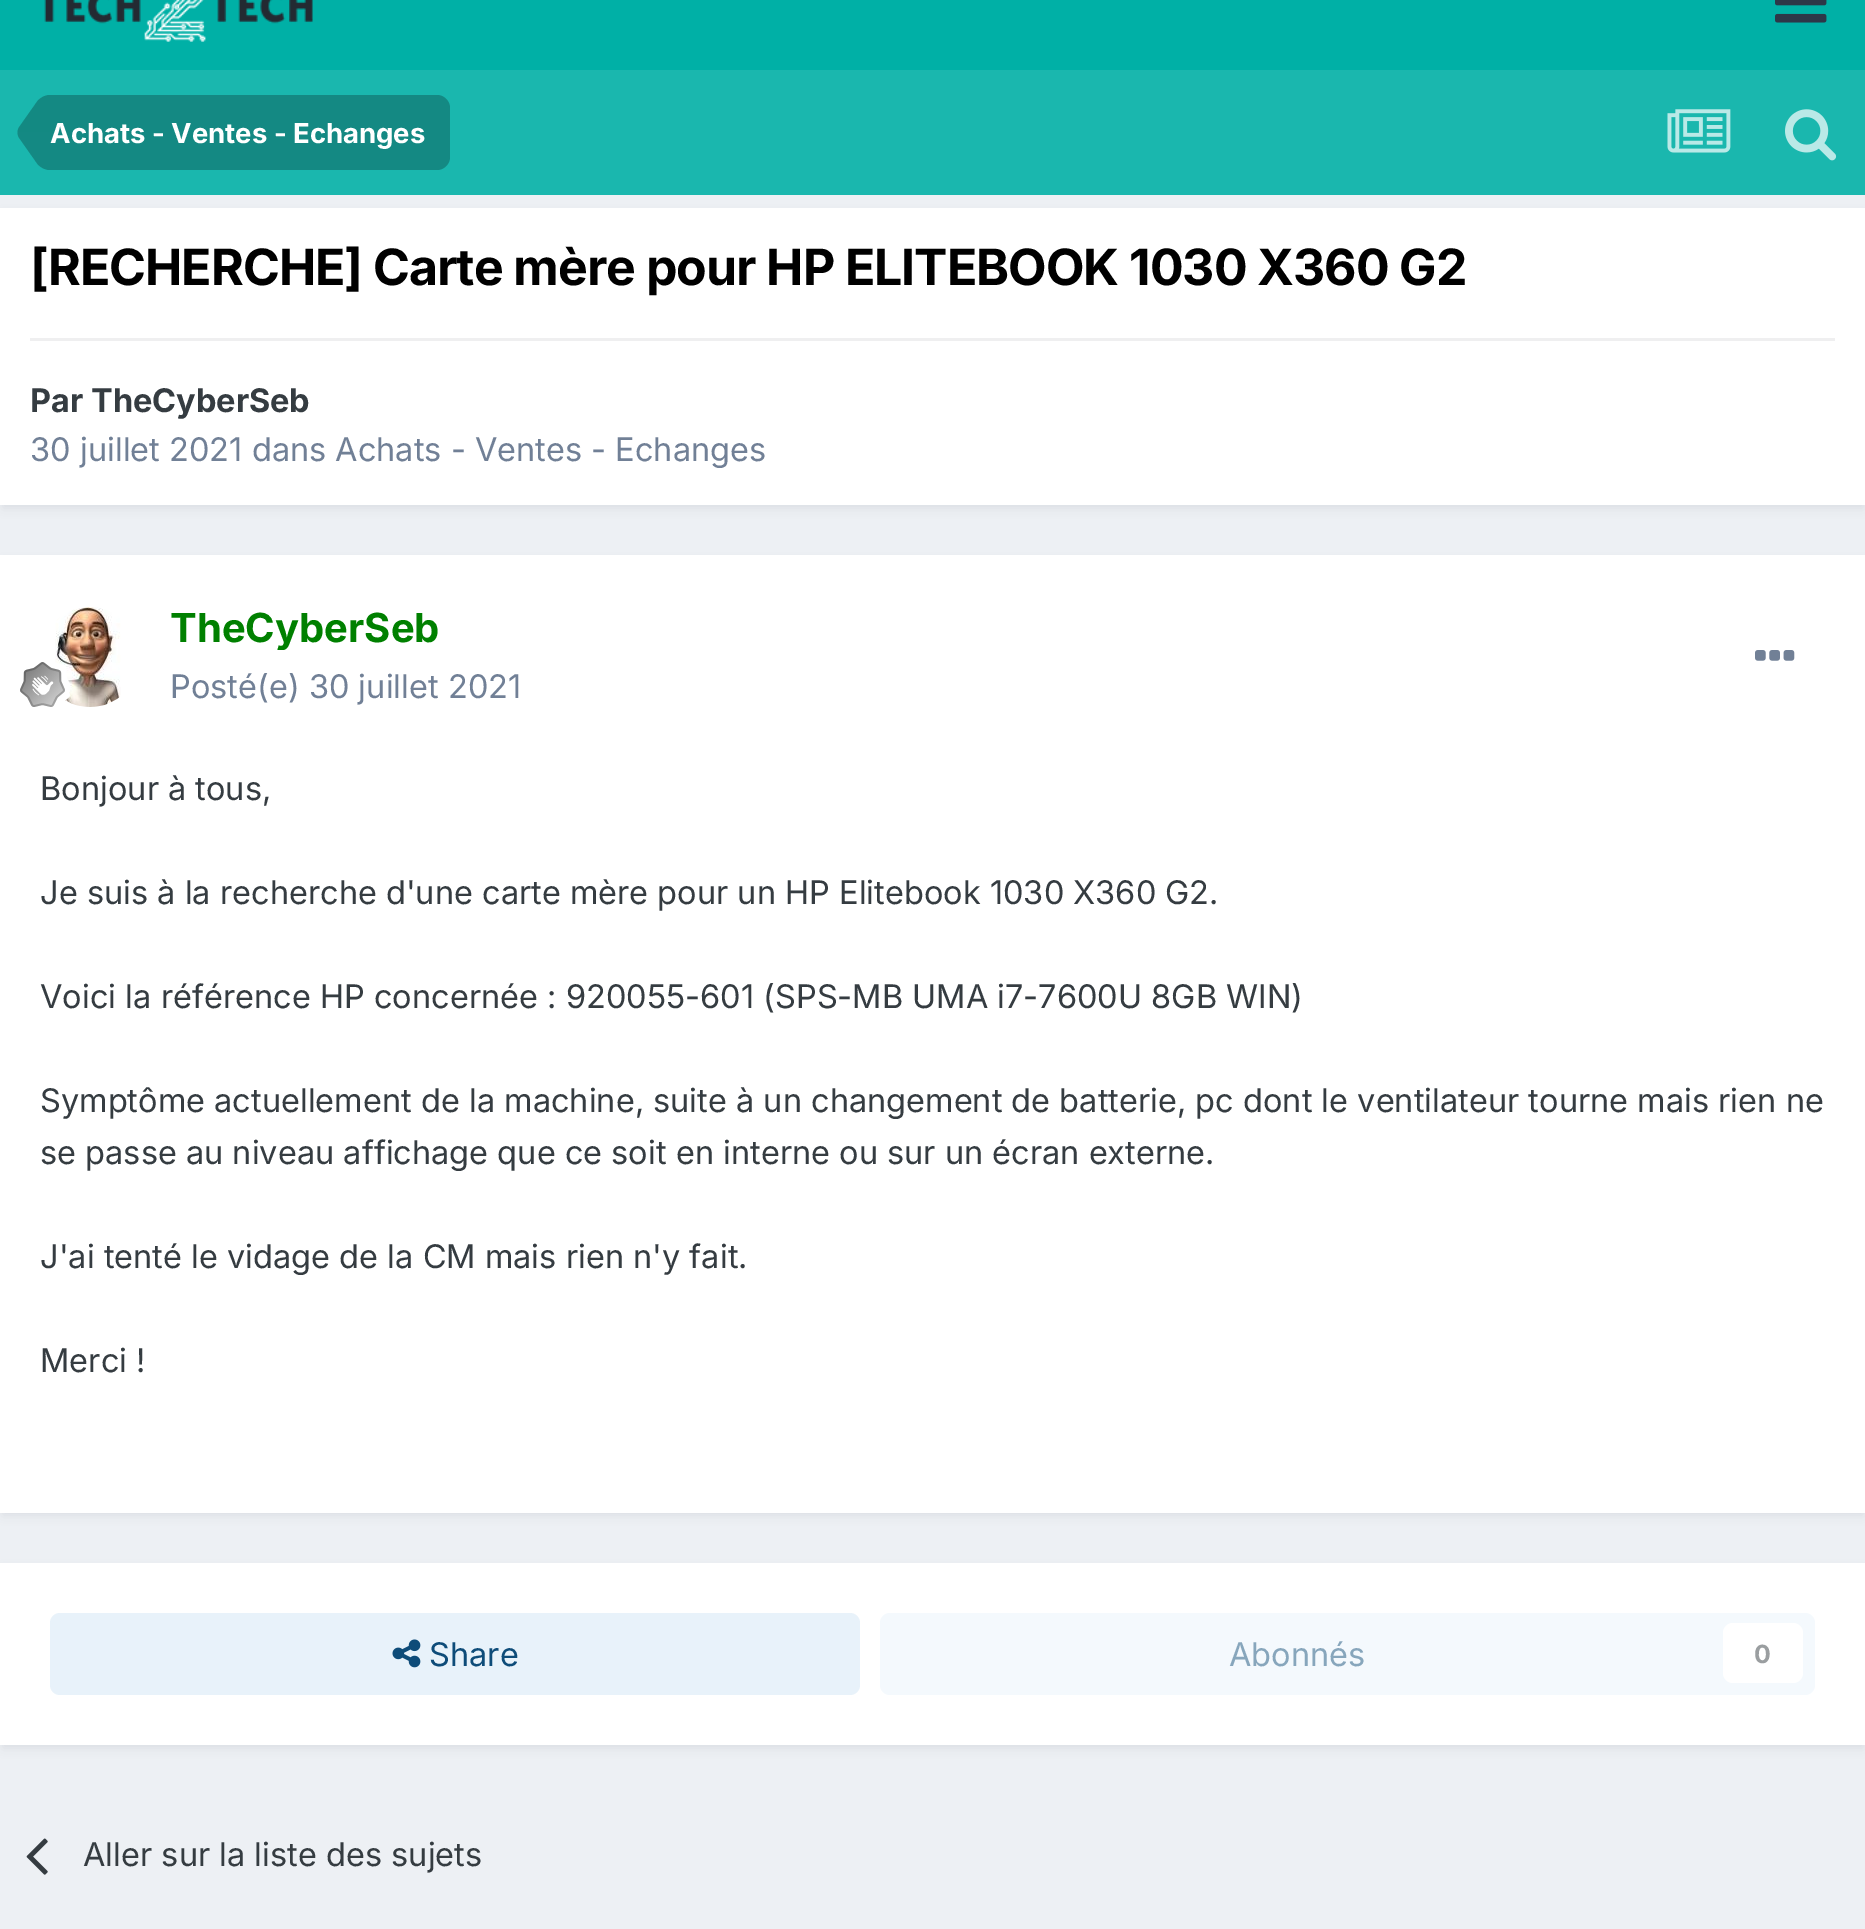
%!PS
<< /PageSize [1865 1929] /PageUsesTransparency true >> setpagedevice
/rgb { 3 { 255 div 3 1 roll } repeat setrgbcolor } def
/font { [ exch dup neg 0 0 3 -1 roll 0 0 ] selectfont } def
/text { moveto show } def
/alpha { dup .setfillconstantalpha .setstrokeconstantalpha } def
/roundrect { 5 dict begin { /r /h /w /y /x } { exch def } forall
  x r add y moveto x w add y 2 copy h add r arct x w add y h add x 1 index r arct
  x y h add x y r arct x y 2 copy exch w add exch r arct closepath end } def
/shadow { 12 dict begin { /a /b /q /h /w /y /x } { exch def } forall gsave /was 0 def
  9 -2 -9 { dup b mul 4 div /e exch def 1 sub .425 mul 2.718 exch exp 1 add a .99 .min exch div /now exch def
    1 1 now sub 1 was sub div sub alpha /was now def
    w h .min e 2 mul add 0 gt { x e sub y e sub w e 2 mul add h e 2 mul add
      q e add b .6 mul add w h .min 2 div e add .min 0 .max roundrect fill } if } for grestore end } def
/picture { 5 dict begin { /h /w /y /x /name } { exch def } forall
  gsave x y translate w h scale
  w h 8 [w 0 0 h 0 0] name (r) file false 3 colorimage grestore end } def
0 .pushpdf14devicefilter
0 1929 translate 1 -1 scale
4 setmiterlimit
237 240 244 rgb
0 0 1865 1929 rectfill
0 176 166 rgb
0 0 1865 70 rectfill
(img_01.rgb) 44 0 269 42 picture
(img_02.rgb) 1775 0 52 23 picture
26 183 174 rgb
0 70 1865 125 rectfill
20 137 131 rgb
50 95 moveto 387 0 rlineto 7 0 13 6 13 13 rcurveto 0 49 rlineto 0 7 -6 13 -13 13 rcurveto -387 0 rlineto closepath fill
18.5 137 moveto -0.5 -1.5 -1 -3 -1 -4.5 rcurveto 32.5 0 rlineto 0 37.5 rlineto -4.5 0 -9 -2 -12.5 -6 rcurveto closepath fill
0.25 alpha
0 0 0 rgb
50 95 moveto 0 37.5 rlineto -32.5 0 rlineto 0 -1.5 0.5 -3 1 -4.5 rcurveto 19 -27 rlineto 3.5 -4 8 -6 12.5 -6 rcurveto closepath fill
1 alpha
(img_03.rgb) 1667 109 64 44 picture
(img_04.rgb) 1785 109 52 52 picture
45 55 72 rgb
3 215 1860 293 0 5 0.1 shadow
255 255 255 rgb
0 208 1865 297 rectfill
239 239 240 rgb
30 338 1805 3 rectfill
45 55 72 rgb
3 563 1860 952 0 5 0.1 shadow
255 255 255 rgb
0 555 1865 958 rectfill
(img_06.rgb) 55 607 66 100 picture
(img_05.rgb) 20 662 50 45 picture
(img_07.rgb) 1755 650 40 11 picture
45 55 72 rgb
3 1570 1860 178 0 5 0.1 shadow
255 255 255 rgb
0 1563 1865 182 rectfill
232 242 250 rgb
50 1613 810 82 10 roundrect fill
(img_08.rgb) 392 1639 29 29 picture
244 249 253 rgb
880 1613 935 82 10 roundrect fill
255 255 255 rgb
1723 1623 80 60 10 roundrect fill
(img_09.rgb) 26 1838 22 37 picture
/Inter-Bold 27.5 font
(Achats - Ventes - Echanges) 50 143 text
/Inter-Bold 50 font
0 0 0 rgb
30 285 moveto -1 0 ([RECHERCHE] Carte mère pour HP ELITEBOOK 1030 X360 G2) ashow
/Inter-Bold 32.5 font
53 60 65 rgb
(Par TheCyberSeb) 30 412 text
/Inter-Regular 32.5 font
113 128 150 rgb
(30 juillet 2021 dans Achats - Ventes - Echanges) 30 461 text
gsave
170 605 270 45 rectclip
/Inter-Bold 40 font
0 128 0 rgb
(TheCyberSeb) 170 642 text
grestore
(Posté\(e\) 30 juillet 2021) 170 698 text
53 60 65 rgb
(Bonjour à tous,) 40 800 text
(Je suis à la recherche d'une carte mère pour un HP Elitebook 1030 X360 G2.) 40 904 text
(Voici la référence HP concernée : 920055-601 \(SPS-MB UMA i7-7600U 8GB WIN\)) 40 1008 text
(Symptôme actuellement de la machine, suite à un changement de batterie, pc dont le ventilateur tourne mais rien ne) 40 1112 text
(se passe au niveau affichage que ce soit en interne ou sur un écran externe.) 40 1164 text
(J'ai tenté le vidage de la CM mais rien n'y fait.) 40 1268 text
(Merci !) 40 1372 text
14 76 121 rgb
(Share) 429 1666 text
135 166 188 rgb
(Abonnés) 1229 1666 text
/Inter-Bold 25 font
154 158 160 rgb
(0) 1754 1663 text
/Inter-Regular 32.5 font
53 60 65 rgb
(Aller sur la liste des sujets) 83 1866 text
.poppdf14devicefilter showpage
